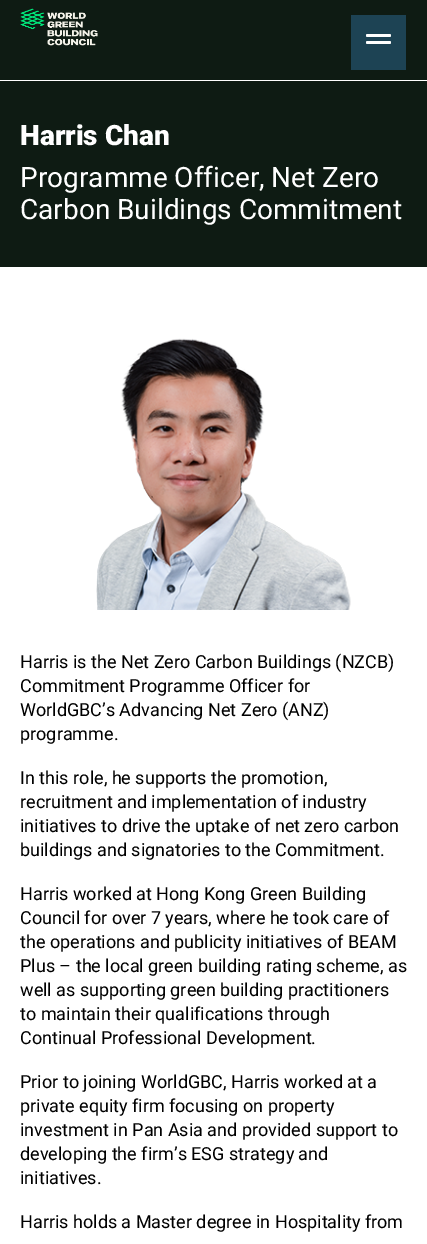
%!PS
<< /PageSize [427 1244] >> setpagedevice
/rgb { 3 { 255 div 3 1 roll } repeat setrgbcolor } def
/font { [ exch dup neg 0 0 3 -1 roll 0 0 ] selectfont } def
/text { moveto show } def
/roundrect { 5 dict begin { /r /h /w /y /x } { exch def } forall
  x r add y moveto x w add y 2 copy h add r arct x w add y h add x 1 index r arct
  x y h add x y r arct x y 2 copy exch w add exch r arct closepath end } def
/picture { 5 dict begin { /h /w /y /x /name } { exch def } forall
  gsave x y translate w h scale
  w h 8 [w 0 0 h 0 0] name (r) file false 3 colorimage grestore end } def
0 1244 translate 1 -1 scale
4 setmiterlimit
255 255 255 rgb
0 0 427 1244 rectfill
14 27 19 rgb
0 0 427 267 rectfill
255 255 255 rgb
0 80 427 1 rectfill
(img_01.rgb) 20 8 78 38 picture
29 67 84 rgb
351 15 55 55 rectfill
255 255 255 rgb
366 41 25 3 1.5 roundrect fill
366 34 25 3 1.5 roundrect fill
(img_02.rgb) 96 338 255 272 picture
/Roboto-Black 28 font
(Harris Chan) 20 145 text
/Roboto-Regular 28 font
(Programme Officer, Net Zero) 20 187 text
(Carbon Buildings Commitment) 20 219 text
/Roboto-Regular 18 font
0 0 0 rgb
(Harris is the Net Zero Carbon Buildings \(NZCB\)) 20 668 text
(Commitment Programme Officer for) 20 692 text
(WorldGBC’s Advancing Net Zero \(ANZ\)) 20 716 text
(programme.) 20 740 text
(In this role, he supports the promotion,) 20 784 text
(recruitment and implementation of industry) 20 808 text
(initiatives to drive the uptake of net zero carbon) 20 832 text
(buildings and signatories to the Commitment.) 20 856 text
(Harris worked at Hong Kong Green Building) 20 900 text
(Council for over 7 years, where he took care of) 20 924 text
(the operations and publicity initiatives of BEAM) 20 948 text
(Plus – the local green building rating scheme, as) 20 972 text
(well as supporting green building practitioners) 20 996 text
(to maintain their qualifications through) 20 1020 text
(Continual Professional Development.) 20 1044 text
(Prior to joining WorldGBC, Harris worked at a) 20 1088 text
(private equity firm focusing on property) 20 1112 text
(investment in Pan Asia and provided support to) 20 1136 text
(developing the firm’s ESG strategy and) 20 1160 text
(initiatives.) 20 1184 text
(Harris holds a Master degree in Hospitality from) 20 1228 text
showpage
